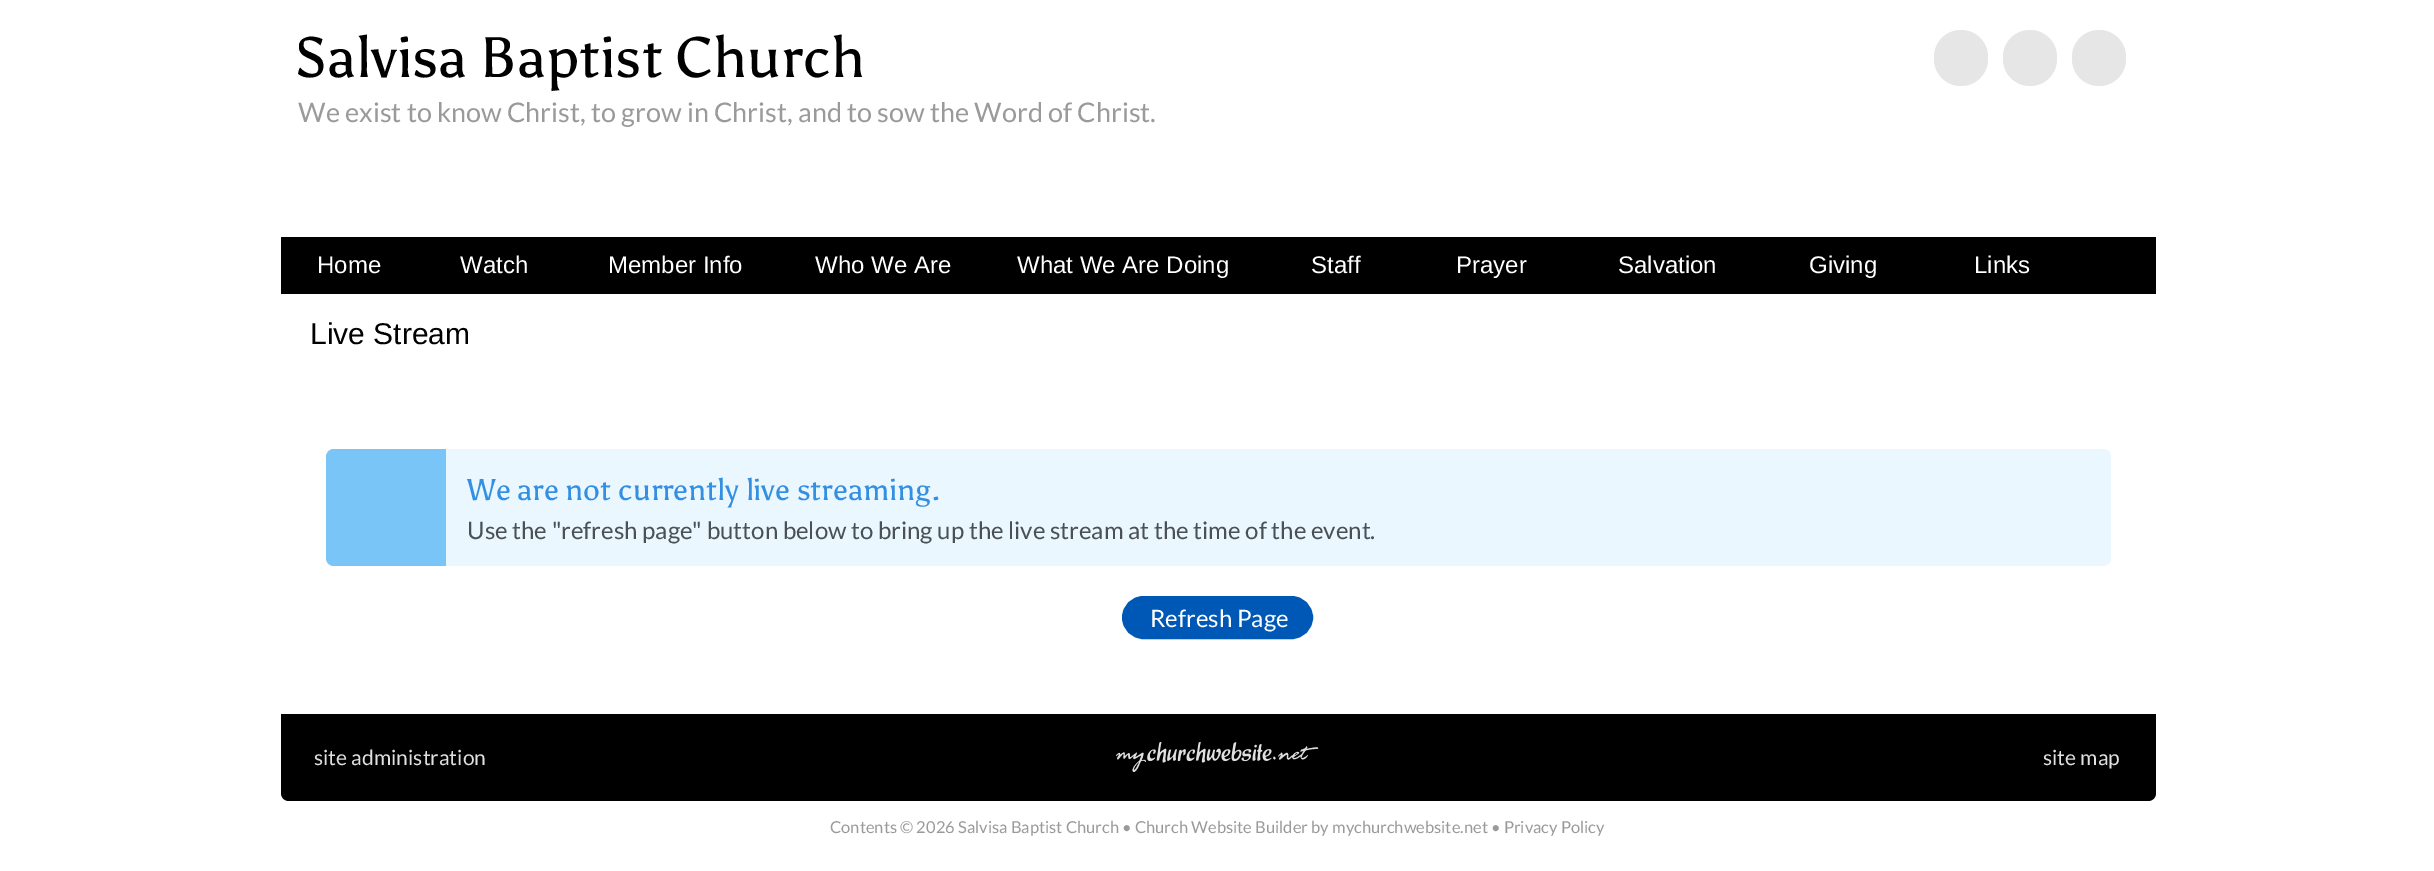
%!PS
<< /PageSize [2434 871] >> setpagedevice
/rgb { 3 { 255 div 3 1 roll } repeat setrgbcolor } def
/font { [ exch dup neg 0 0 3 -1 roll 0 0 ] selectfont } def
/text { moveto show } def
/roundrect { 5 dict begin { /r /h /w /y /x } { exch def } forall
  x r add y moveto x w add y 2 copy h add r arct x w add y h add x 1 index r arct
  x y h add x y r arct x y 2 copy exch w add exch r arct closepath end } def
/picture { 5 dict begin { /h /w /y /x /name } { exch def } forall
  gsave x y translate w h scale
  w h 8 [w 0 0 h 0 0] name (r) file false 3 colorimage grestore end } def
0 871 translate 1 -1 scale
4 setmiterlimit
255 255 255 rgb
0 0 2434 871 rectfill
230 230 230 rgb
1934 30 54 56 27 roundrect fill
2003 30 54 56 27 roundrect fill
2072 30 54 56 27 roundrect fill
0 0 0 rgb
281 237 1875 57 rectfill
122 197 248 rgb
334 449 moveto 112 0 rlineto 0 117 rlineto -112 0 rlineto -4.5 0 -8 -3.5 -8 -8 rcurveto 0 -101 rlineto 0 -4.5 3.5 -8 8 -8 rcurveto closepath fill
234 247 255 rgb
446 449 moveto 1657 0 rlineto 4.5 0 8 3.5 8 8 rcurveto 0 101 rlineto 0 4.5 -3.5 8 -8 8 rcurveto -1657 0 rlineto closepath fill
0 88 182 rgb
1123 597 189 41 20.5 roundrect gsave fill grestore
2 setlinewidth
stroke
0 0 0 rgb
281 714 moveto 1875 0 rlineto 0 79 rlineto 0 4.5 -3.5 8 -8 8 rcurveto -1859 0 rlineto -4.5 0 -8 -3.5 -8 -8 rcurveto closepath fill
(img_01.rgb) 1116 741 203 32 picture
/Asul-Regular 57 font
(Salvisa Baptist Church) 295 77 text
/Lato-Regular 27 font
154 154 154 rgb
(We exist to know Christ, to grow in Christ, and to sow the Word of Christ.) 298 122 text
/LiberationSans-Regular 24 font
255 255 255 rgb
(Home) 317 273 text
(Watch) 460 273 text
(Member Info) 608 273 text
(Who We Are) 815 273 text
(What We Are Doing) 1017 273 text
(Staff) 1311 273 text
(Prayer) 1456 273 text
(Salvation) 1618 273 text
(Giving) 1809 273 text
(Links) 1974 273 text
/LiberationSans-Regular 30 font
0 0 0 rgb
(Live Stream) 310 344 text
/Asul-Regular 30 font
51 143 226 rgb
(We are not currently live streaming.) 467 500 text
/Lato-Regular 24 font
73 80 86 rgb
(Use the "refresh page" button below to bring up the live stream at the time of the event.) 467 539 text
255 255 255 rgb
(Refresh Page) 1150 627 text
/Lato-Regular 21 font
224 224 224 rgb
(site administration) 314 765 text
(site map) 2043 765 text
/Lato-Regular 16.5 font
154 154 154 rgb
(Contents © 2026 Salvisa Baptist Church • Church Website Builder by mychurchwebsite.net • Privacy Policy) 830 833 text
showpage
